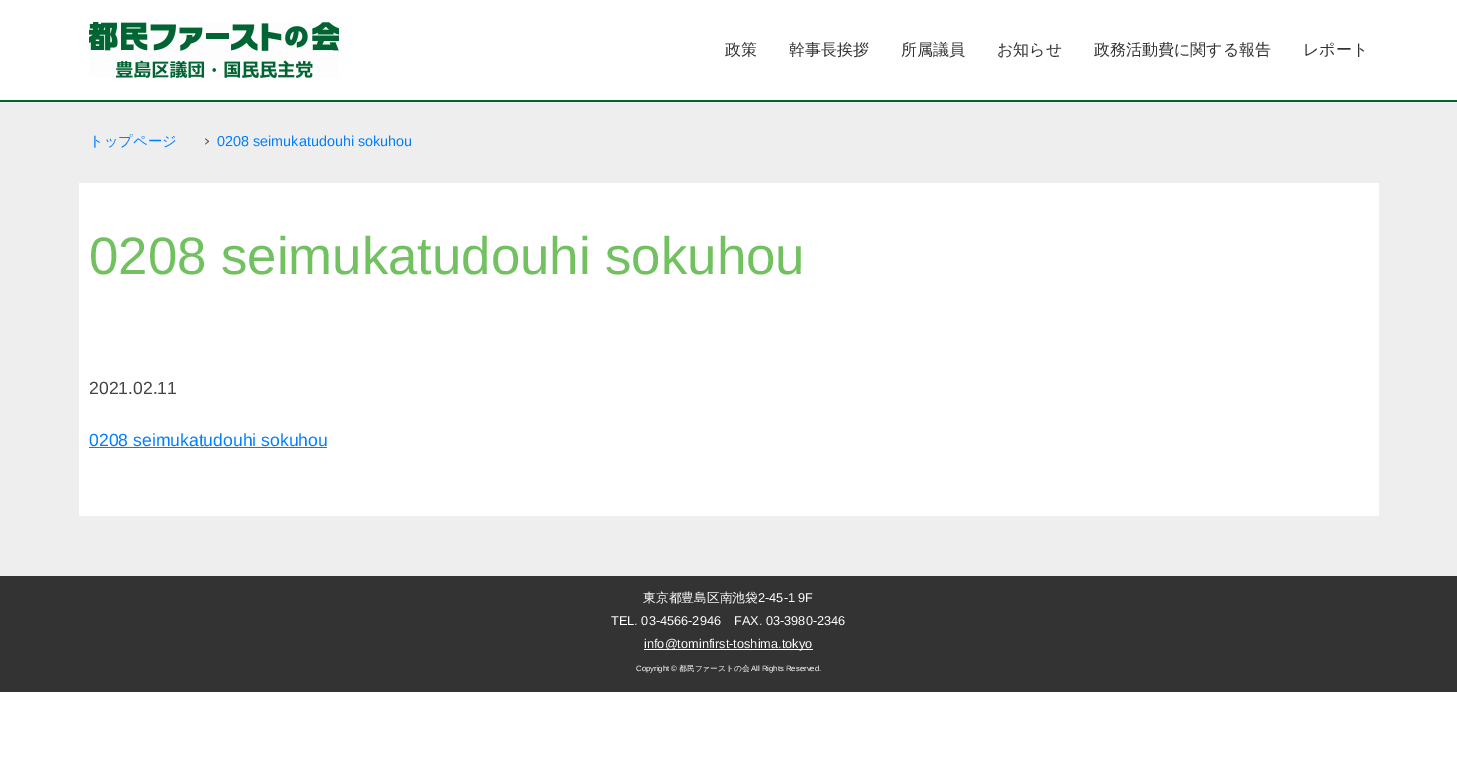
%!PS
<< /PageSize [1457 759] >> setpagedevice
/rgb { 3 { 255 div 3 1 roll } repeat setrgbcolor } def
/font { [ exch dup neg 0 0 3 -1 roll 0 0 ] selectfont } def
/text { moveto show } def
/picture { 5 dict begin { /h /w /y /x /name } { exch def } forall
  gsave x y translate w h scale
  w h 8 [w 0 0 h 0 0] name (r) file false 3 colorimage grestore end } def
0 759 translate 1 -1 scale
4 setmiterlimit
255 255 255 rgb
0 0 1457 759 rectfill
0 100 49 rgb
0 100 1457 2 rectfill
(img_01.rgb) 89 22 250 56 picture
238 238 238 rgb
0 102 1457 474 rectfill
(img_02.rgb) 205 138 4 7 picture
255 255 255 rgb
79 183 1300 333 rectfill
0 127 255 rgb
89 447 238 1 rectfill
51 51 51 rgb
0 576 1457 116 rectfill
255 255 255 rgb
644 649 169 1 rectfill
/WenQuanYiZenHei-Medium 16 font
51 51 51 rgb
(政策) 725 55 text
(幹事長挨拶) 789 55 text
(所属議員) 901 55 text
(お知らせ) 997 55 text
(政務活動費に関する報告) 1094 55 text
(レポート) 1303 55 text
/WenQuanYiZenHei-Medium 14.4 font
0 127 255 rgb
(トップページ) 89 146 text
/LiberationSans-Regular 14.4 font
(0208 seimukatudouhi sokuhou) 217 146 text
/LiberationSans-Regular 52.75 font
114 193 96 rgb
(0208 seimukatudouhi sokuhou) 89 274 text
/LiberationSans-Regular 17.6 font
68 68 68 rgb
(2021.02.11) 89 394 text
0 127 255 rgb
(0208 seimukatudouhi sokuhou) 89 446 text
/WenQuanYiZenHei-Medium 12.75 font
255 255 255 rgb
(東京都豊島区南池袋) 643 602 text
/LiberationSans-Regular 12.75 font
(2-45-1 9F) 758 602 text
(TEL. 03-4566-2946) 611 625 text
(FAX. 03-3980-2346) 734 625 text
(info@tominfirst-toshima.tokyo) 644 648 text
/LiberationSans-Regular 7.75 font
(Copyright ©) 636 671 text
/WenQuanYiZenHei-Medium 7.75 font
(都民ファーストの会) 679 671 text
/LiberationSans-Regular 7.75 font
(All Rights Reserved.) 751 671 text
showpage
